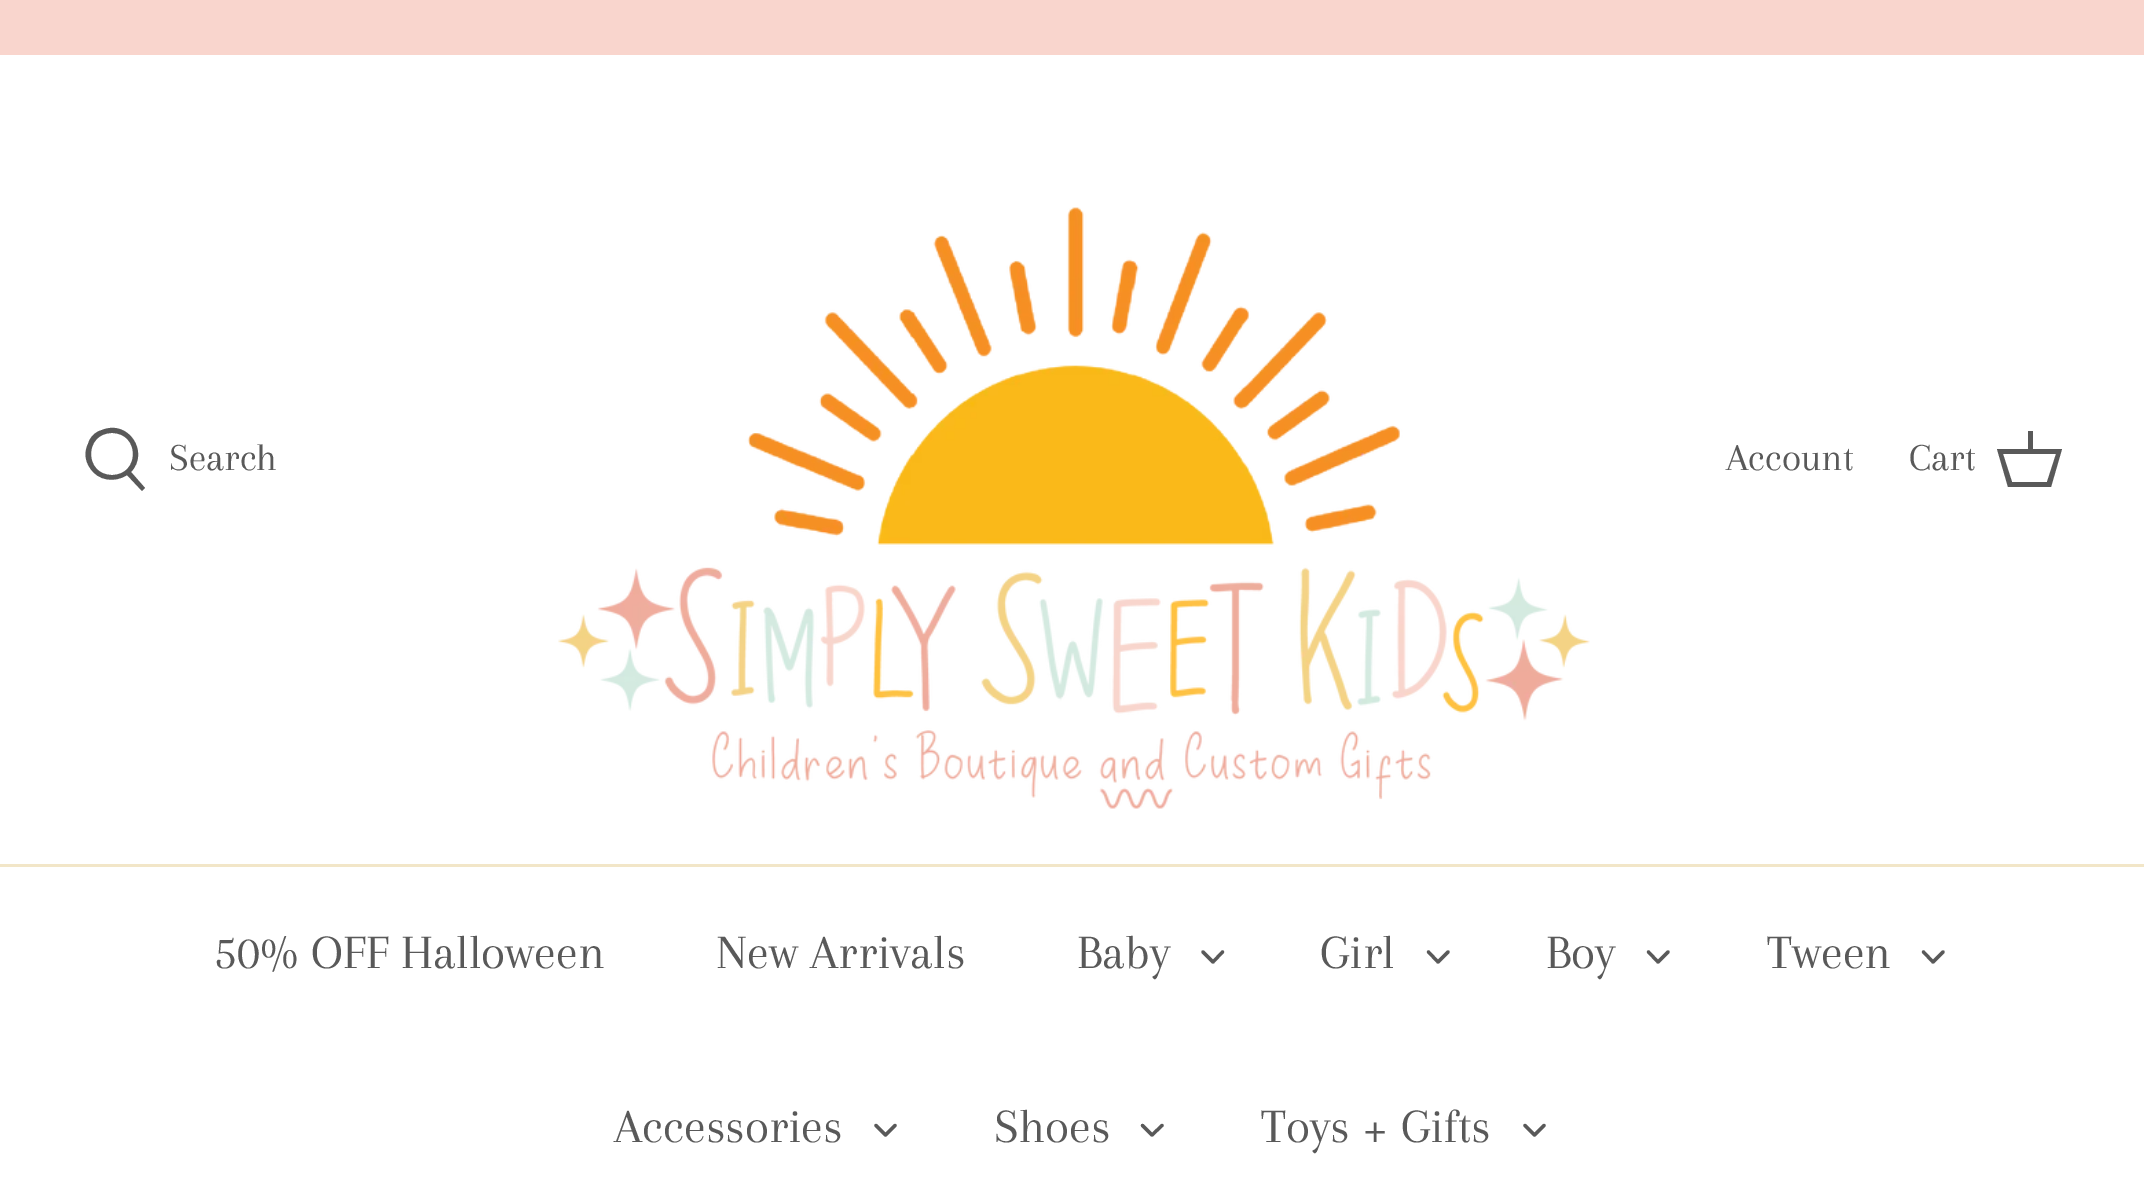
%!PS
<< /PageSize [2144 1198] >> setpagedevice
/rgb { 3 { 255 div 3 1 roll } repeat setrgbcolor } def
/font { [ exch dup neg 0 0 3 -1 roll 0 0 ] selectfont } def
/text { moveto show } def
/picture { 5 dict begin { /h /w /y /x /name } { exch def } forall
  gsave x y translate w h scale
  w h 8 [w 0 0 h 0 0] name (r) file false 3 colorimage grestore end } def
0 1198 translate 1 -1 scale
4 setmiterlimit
255 255 255 rgb
0 0 2144 1198 rectfill
249 213 205 rgb
0 0 2144 55 rectfill
242 230 200 rgb
0 864 2144 3 rectfill
89 89 89 rgb
131 472 moveto 14 16 rlineto -3 3 rlineto -15 -16 rlineto -12 8 -29 6 -37 -7 rcurveto -5 -7 -6 -16 -2 -24 rcurveto 2 -7 7 -12 14 -14 rcurveto 26 -11 48 22 29 42 rcurveto closepath 112 475 moveto 28 0 28 -42 0 -42 rcurveto -28 0 -28 42 0 42 rcurveto closepath fill
(img_01.rgb) 558 207 1032 602 picture
2028 449 moveto 0 -18 rlineto 5 0 rlineto 0 18 rlineto 29 0 rlineto -11 38 rlineto -43 0 rlineto -11 -38 rlineto closepath 2003 454 moveto 9 28 rlineto 35 0 rlineto 9 -28 rlineto closepath fill
3.2 setlinewidth
1 setlinecap
1 setlinejoin
1203 952 moveto 10 10 rlineto 9.5 -10 rlineto stroke
1428.5 952 moveto 9.5 10 rlineto 10 -10 rlineto stroke
1648.5 952 moveto 9.5 10 rlineto 10 -10 rlineto stroke
1923.5 952 moveto 9.5 10 rlineto 10 -10 rlineto stroke
876 1125.5 moveto 9.5 9.5 rlineto 9.5 -9.5 rlineto stroke
1142.5 1125.5 moveto 9.5 9.5 rlineto 10 -9.5 rlineto stroke
1525 1125.5 moveto 9.5 9.5 rlineto 9.5 -9.5 rlineto stroke
/Arapey-Regular 39.5 font
(Search) 169 470 text
(Account) 1726 470 text
(Cart) 1909 470 text
/Arapey-Regular 49.5 font
(50% OFF Halloween) 214 968 text
(New Arrivals) 716 968 text
(Baby) 1077 968 text
(Girl) 1320 968 text
(Boy) 1546 968 text
(Tween) 1767 968 text
(Accessories) 614 1142 text
(Shoes) 994 1142 text
(Toys + Gifts) 1261 1142 text
showpage
